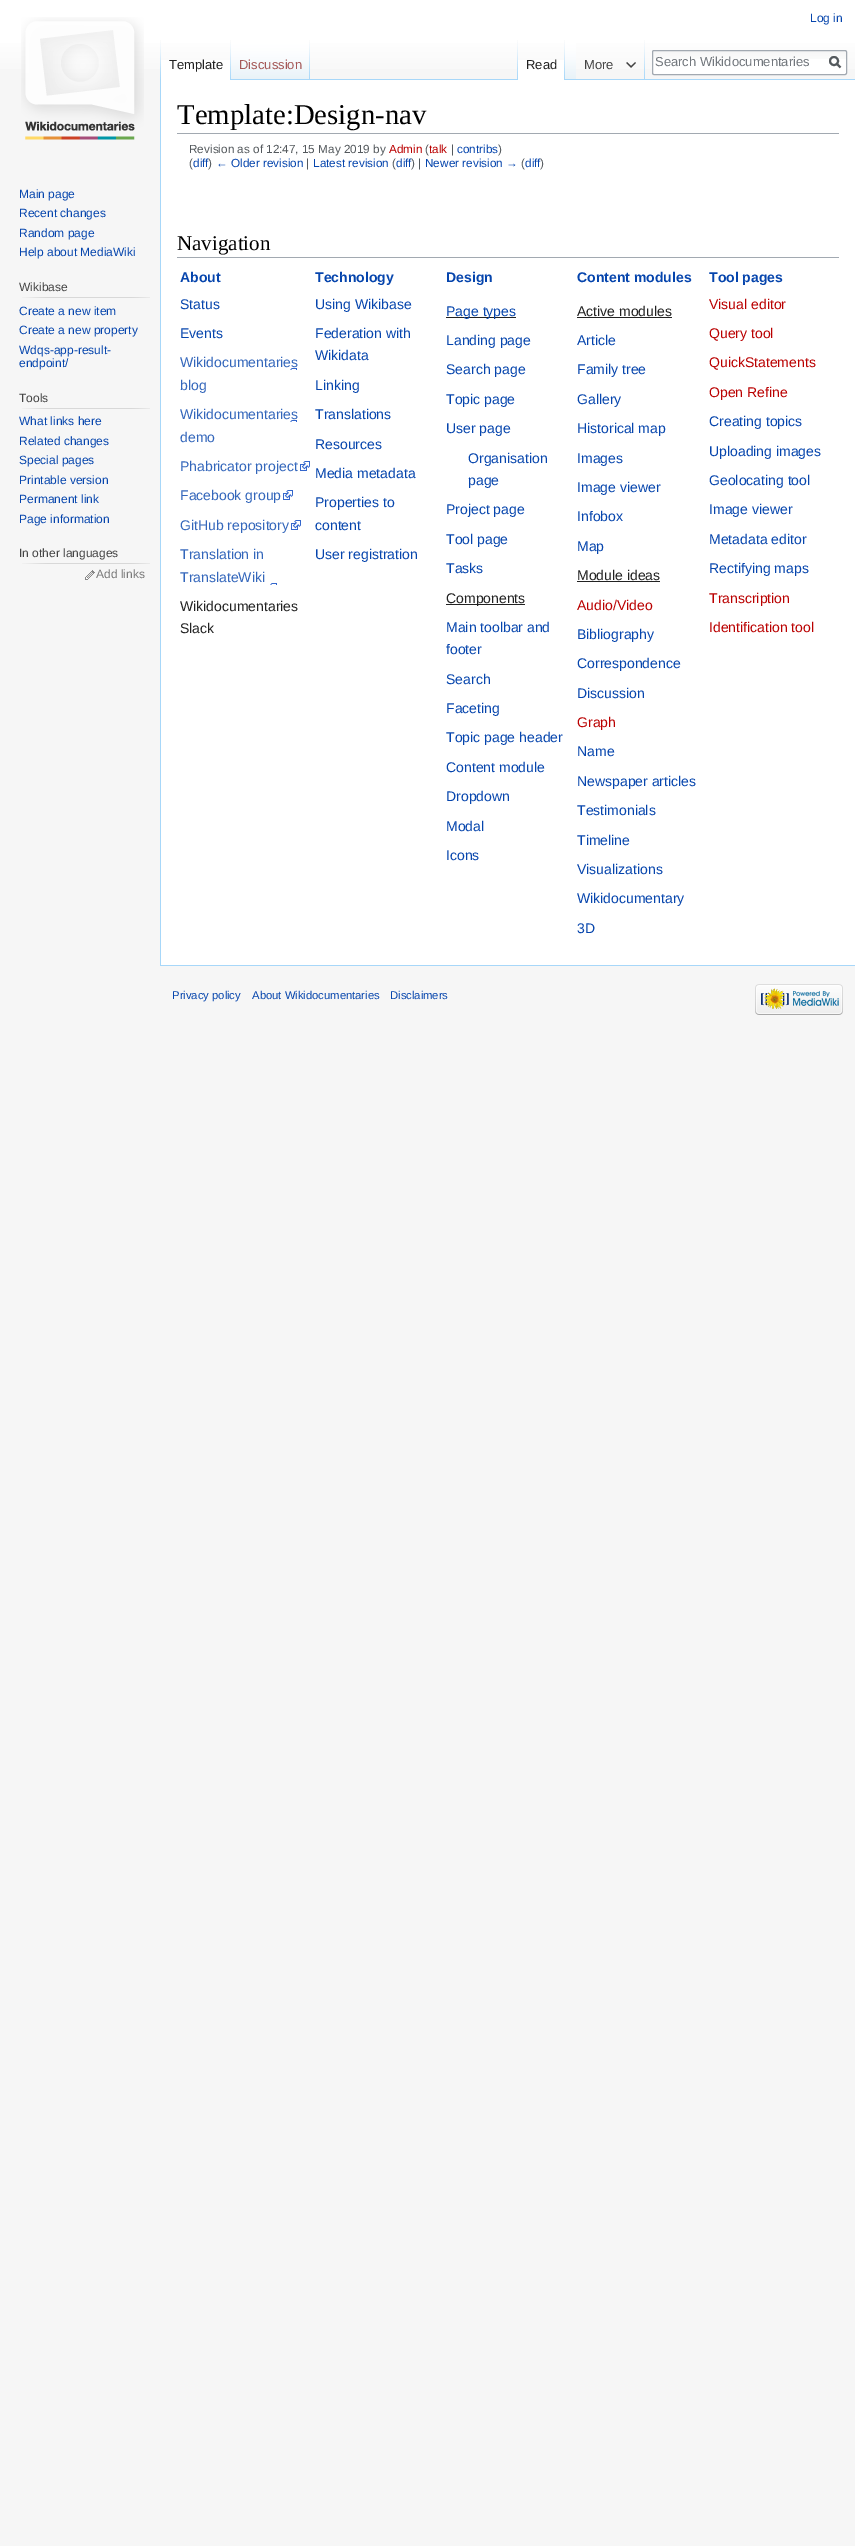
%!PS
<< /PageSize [855 2546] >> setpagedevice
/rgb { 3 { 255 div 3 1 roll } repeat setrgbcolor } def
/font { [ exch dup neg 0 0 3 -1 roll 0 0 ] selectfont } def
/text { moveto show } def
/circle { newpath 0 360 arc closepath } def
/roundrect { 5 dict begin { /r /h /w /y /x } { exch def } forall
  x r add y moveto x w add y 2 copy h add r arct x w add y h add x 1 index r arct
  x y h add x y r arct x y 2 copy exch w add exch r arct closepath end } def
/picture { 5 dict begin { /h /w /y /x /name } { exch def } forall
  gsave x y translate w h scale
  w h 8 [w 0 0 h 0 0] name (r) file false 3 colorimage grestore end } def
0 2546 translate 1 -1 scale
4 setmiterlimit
246 246 246 rgb
0 0 855 2546 rectfill
gsave 0 0 moveto 855 0 rlineto 0 69 rlineto -855 0 rlineto closepath clip newpath
<< /ShadingType 2 /ColorSpace /DeviceRGB /Coords [428 0 428 80] /Extend [true true] /Function << /FunctionType 3 /Domain [0 1] /Functions [<< /FunctionType 2 /Domain [0 1] /C0 [1 1 1] /C1 [1 1 1] /N 1 >> << /FunctionType 2 /Domain [0 1] /C0 [1 1 1] /C1 [0.965 0.965 0.965] /N 1 >>] /Bounds [0.5] /Encode [0 1 0 1] >> >> shfill grestore
(img_01.rgb) 160 40 1 39 picture
255 255 255 rgb
161 60 69 20 rectfill
(img_02.rgb) 230 40 1 40 picture
(img_03.rgb) 231 40 78 39 picture
(img_01.rgb) 309 40 1 39 picture
(img_01.rgb) 517 40 1 39 picture
167 215 249 rgb
231 79 624 1 rectfill
255 255 255 rgb
518 60 46 20 rectfill
(img_02.rgb) 564 40 1 40 picture
(img_04.rgb) 565 40 11 39 picture
(img_01.rgb) 644 40 1 39 picture
(img_05.rgb) 626 62 10 6 picture
652 50 195 25 2 roundrect fill
(img_06.rgb) 652 51 195 8 picture
162 169 177 rgb
652.5 50.5 194 24 1.5 roundrect stroke
84 89 93 rgb
2 setlinewidth
840.5 67.5 moveto -4 -4 rlineto stroke
834 61 4 circle stroke
(img_07.rgb) 21 17 123 123 picture
(img_08.rgb) 22 297 128 1 picture
(img_08.rgb) 22 408 128 1 picture
(img_08.rgb) 22 563 128 1 picture
(img_09.rgb) 85 570 10 10 picture
255 255 255 rgb
161 80 694 885 rectfill
167 215 249 rgb
160 965 695 1 rectfill
160 79 1 887 rectfill
162 169 177 rgb
177 133 662 1 rectfill
177 257 662 1 rectfill
(img_10.rgb) 290 368 7 2 picture
(img_10.rgb) 290 420 7 2 picture
(img_11.rgb) 300 461 10 10 picture
(img_11.rgb) 283 490 10 10 picture
(img_11.rgb) 291 520 10 10 picture
(img_10.rgb) 270 583 7 2 picture
34 34 34 rgb
446 317 70 1 rectfill
446 604 79 1 rectfill
577 317 95 1 rectfill
577 581 83 1 rectfill
(img_12.rgb) 755 984 88 31 picture
/LiberationSans-Regular 12 font
6 69 173 rgb
(Log in) 810 22 text
/LiberationSans-Regular 13 font
34 34 34 rgb
(Template) 169 69 text
165 88 88 rgb
(Discussion) 239 69 text
34 34 34 rgb
(Read) 526 69 text
68 68 68 rgb
(More) 584 69 text
114 119 125 rgb
(Search Wikidocumentaries) 655 66 text
/LiberationSans-Regular 12 font
6 69 173 rgb
(Main page) 19 198 text
(Recent changes) 19 217 text
(Random page) 19 237 text
(Help about MediaWiki) 19 256 text
68 68 68 rgb
(Wikibase) 19 291 text
6 69 173 rgb
(Create a new item) 19 315 text
(Create a new property) 19 334 text
(Wdqs-app-result-) 19 354 text
(endpoint/) 19 367 text
68 68 68 rgb
(Tools) 19 402 text
6 69 173 rgb
(What links here) 19 425 text
(Related changes) 19 445 text
(Special pages) 19 464 text
(Printable version) 19 484 text
(Permanent link) 19 503 text
(Page information) 19 523 text
68 68 68 rgb
(In other languages) 19 557 text
121 121 121 rgb
(Add links) 96 578 text
/LiberationSerif-Regular 28.75 font
0 0 0 rgb
(Template:Design-nav) 177 124 text
/LiberationSans-Regular 11.75 font
84 89 93 rgb
(Revision as of 12:47, 15 May 2019 by) 189 153 text
186 0 0 rgb
(Admin) 389 153 text
84 89 93 rgb
(\() 425 153 text
186 0 0 rgb
(talk) 429 153 text
84 89 93 rgb
(|) 451 153 text
6 69 173 rgb
(contribs) 457 153 text
84 89 93 rgb
(\)) 498 153 text
(\() 189 167 text
6 69 173 rgb
(diff) 193 167 text
84 89 93 rgb
(\)) 208 167 text
6 69 173 rgb
(← Older revision) 216 167 text
84 89 93 rgb
(|) 306 167 text
6 69 173 rgb
(Latest revision) 313 167 text
84 89 93 rgb
(\() 392 167 text
6 69 173 rgb
(diff) 396 167 text
84 89 93 rgb
(\) |) 411 167 text
6 69 173 rgb
(Newer revision →) 425 167 text
84 89 93 rgb
(\() 521 167 text
6 69 173 rgb
(diff) 525 167 text
84 89 93 rgb
(\)) 540 167 text
/LiberationSerif-Regular 21 font
0 0 0 rgb
(Navigation) 177 250 text
/LiberationSans-Bold 14 font
6 69 173 rgb
(About) 180 282 text
(Technology) 315 282 text
(Design) 446 282 text
(Content modules) 577 282 text
(Tool pages) 709 282 text
/LiberationSans-Regular 14 font
(Status) 180 309 text
(Events) 180 338 text
51 102 187 rgb
(Wikidocumentaries) 180 367 text
(blog) 180 390 text
(Wikidocumentaries) 180 419 text
(demo) 180 442 text
(Phabricator project) 180 471 text
(Facebook group) 180 500 text
(GitHub repository) 180 530 text
(Translation in) 180 559 text
(TranslateWiki) 180 582 text
34 34 34 rgb
(Wikidocumentaries) 180 611 text
(Slack) 180 633 text
6 69 173 rgb
(Using Wikibase) 315 309 text
(Federation with) 315 338 text
(Wikidata) 315 360 text
(Linking) 315 390 text
(Translations) 315 419 text
(Resources) 315 449 text
(Media metadata) 315 478 text
(Properties to) 315 507 text
(content) 315 530 text
(User registration) 315 559 text
(Page types) 446 316 text
(Landing page) 446 345 text
(Search page) 446 374 text
(Topic page) 446 404 text
(User page) 446 433 text
(Organisation) 468 463 text
(page) 468 485 text
(Project page) 446 514 text
(Tool page) 446 544 text
(Tasks) 446 573 text
34 34 34 rgb
(Components) 446 603 text
6 69 173 rgb
(Main toolbar and) 446 632 text
(footer) 446 654 text
(Search) 446 684 text
(Faceting) 446 713 text
(Topic page header) 446 742 text
(Content module) 446 772 text
(Dropdown) 446 801 text
(Modal) 446 831 text
(Icons) 446 860 text
34 34 34 rgb
(Active modules) 577 316 text
6 69 173 rgb
(Article) 577 345 text
(Family tree) 577 374 text
(Gallery) 577 404 text
(Historical map) 577 433 text
(Images) 577 463 text
(Image viewer) 577 492 text
(Infobox) 577 521 text
(Map) 577 551 text
34 34 34 rgb
(Module ideas) 577 580 text
186 0 0 rgb
(Audio/Video) 577 610 text
6 69 173 rgb
(Bibliography) 577 639 text
(Correspondence) 577 668 text
(Discussion) 577 698 text
186 0 0 rgb
(Graph) 577 727 text
6 69 173 rgb
(Name) 577 756 text
(Newspaper articles) 577 786 text
(Testimonials) 577 815 text
(Timeline) 577 845 text
(Visualizations) 577 874 text
(Wikidocumentary) 577 903 text
(3D) 577 933 text
186 0 0 rgb
(Visual editor) 709 309 text
(Query tool) 709 338 text
(QuickStatements) 709 367 text
(Open Refine) 709 397 text
6 69 173 rgb
(Creating topics) 709 426 text
(Uploading images) 709 456 text
(Geolocating tool) 709 485 text
(Image viewer) 709 514 text
(Metadata editor) 709 544 text
(Rectifying maps) 709 573 text
186 0 0 rgb
(Transcription) 709 603 text
(Identification tool) 709 632 text
/LiberationSans-Regular 11.25 font
6 69 173 rgb
(Privacy policy) 172 999 text
(About Wikidocumentaries) 252 999 text
(Disclaimers) 390 999 text
showpage
